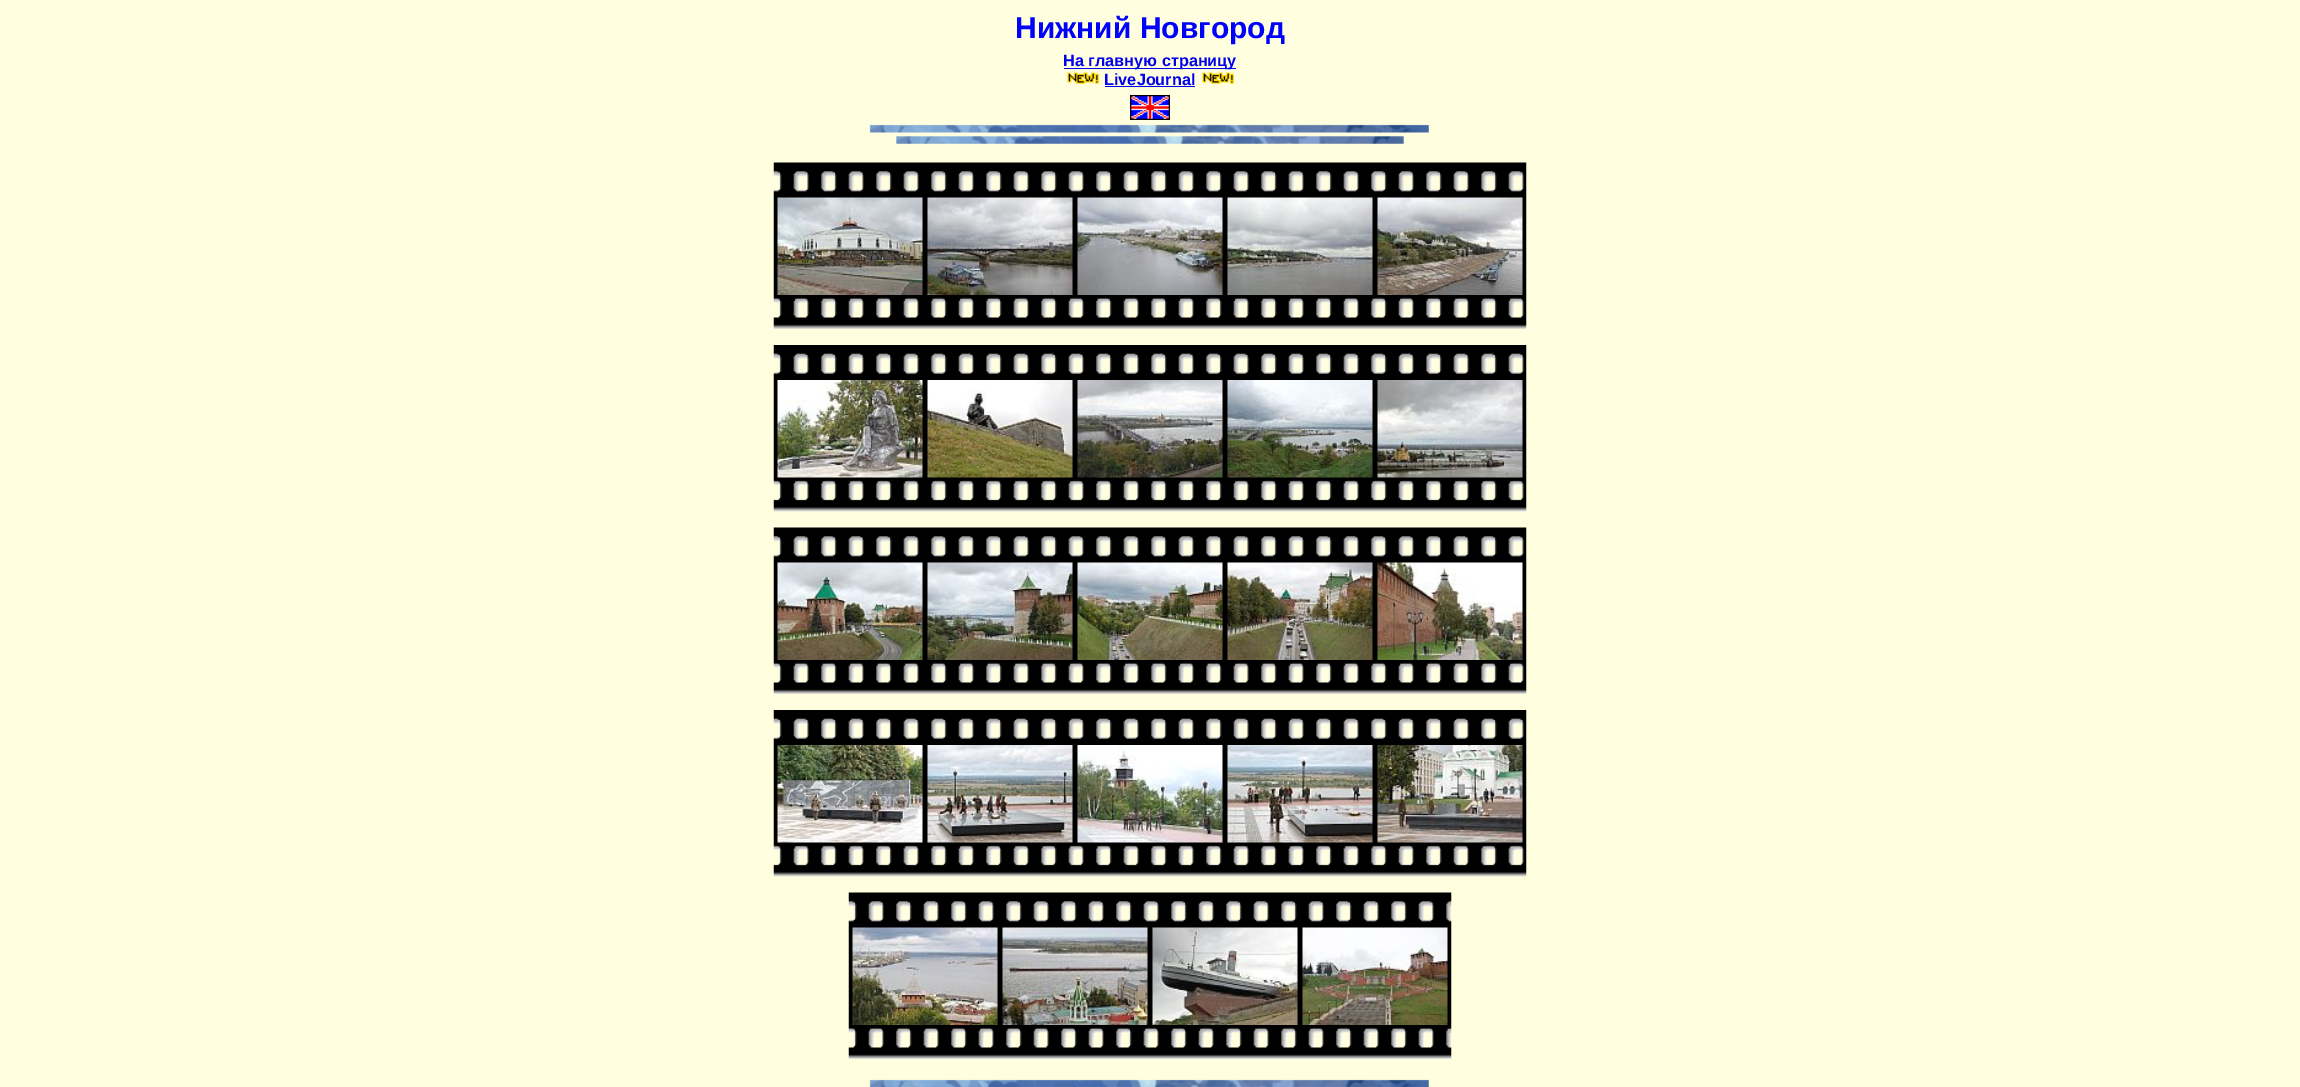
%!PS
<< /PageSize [2300 1087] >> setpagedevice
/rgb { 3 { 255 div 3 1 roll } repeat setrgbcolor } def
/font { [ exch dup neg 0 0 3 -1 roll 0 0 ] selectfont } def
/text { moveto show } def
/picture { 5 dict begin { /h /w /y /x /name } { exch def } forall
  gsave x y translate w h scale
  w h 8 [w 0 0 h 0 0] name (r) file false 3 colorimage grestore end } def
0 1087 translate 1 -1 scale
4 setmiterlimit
255 255 224 rgb
0 0 2300 1087 rectfill
0 0 238 rgb
1064 68 172 1 rectfill
(img_01.rgb) 1067 72 32 12 picture
1105 86 90 1 rectfill
(img_01.rgb) 1202 72 32 12 picture
(img_02.rgb) 1130 95 40 25 picture
(img_03.rgb) 869 124 560 20 picture
(img_04.rgb) 773 162 754 167 picture
(img_05.rgb) 777 197 146 98 picture
(img_06.rgb) 927 197 146 98 picture
(img_07.rgb) 1077 197 146 98 picture
(img_08.rgb) 1227 197 146 98 picture
(img_09.rgb) 1377 197 146 98 picture
(img_10.rgb) 773 345 754 167 picture
(img_11.rgb) 777 380 146 98 picture
(img_12.rgb) 927 380 146 98 picture
(img_13.rgb) 1077 380 146 98 picture
(img_14.rgb) 1227 380 146 98 picture
(img_15.rgb) 1377 380 146 98 picture
(img_16.rgb) 773 527 754 167 picture
(img_17.rgb) 777 562 146 98 picture
(img_18.rgb) 927 562 146 98 picture
(img_19.rgb) 1077 562 146 98 picture
(img_20.rgb) 1227 562 146 98 picture
(img_21.rgb) 1377 562 146 98 picture
(img_22.rgb) 773 710 754 167 picture
(img_23.rgb) 777 745 146 98 picture
(img_24.rgb) 927 745 146 98 picture
(img_25.rgb) 1077 745 146 98 picture
(img_26.rgb) 1227 745 146 98 picture
(img_27.rgb) 1377 745 146 98 picture
(img_28.rgb) 848 892 604 167 picture
(img_29.rgb) 852 927 146 98 picture
(img_30.rgb) 1002 927 146 98 picture
(img_31.rgb) 1152 927 146 98 picture
(img_32.rgb) 1302 927 146 98 picture
(img_33.rgb) 869 1079 560 8 picture
/LiberationSans-Bold 30 font
0 0 255 rgb
(Нижний Новгород) 1015 38 text
/LiberationSans-Bold 16.25 font
0 0 238 rgb
(На главную страницу) 1063 66 text
(LiveJournal) 1104 85 text
showpage
